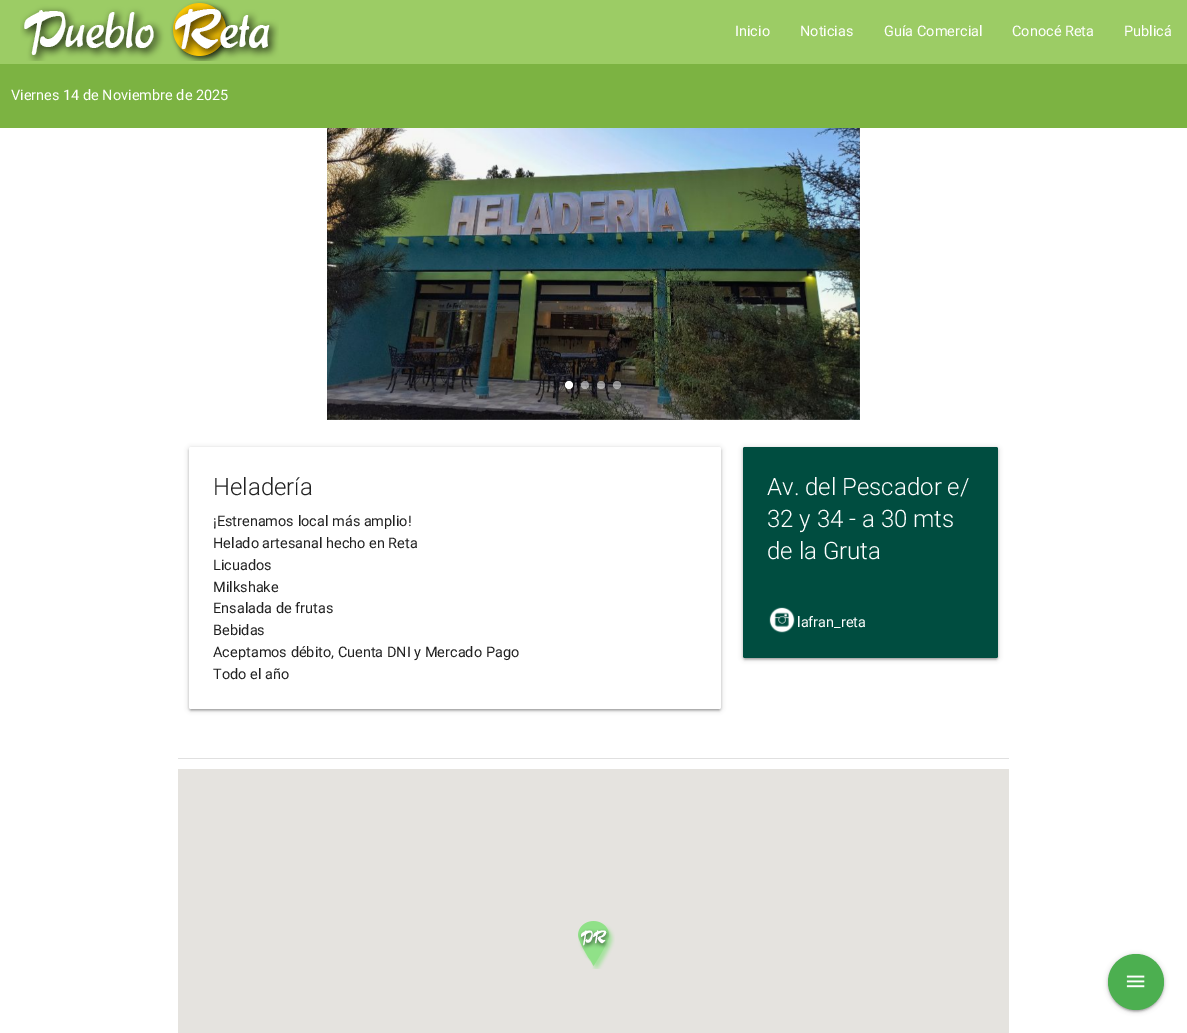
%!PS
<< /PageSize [1187 1033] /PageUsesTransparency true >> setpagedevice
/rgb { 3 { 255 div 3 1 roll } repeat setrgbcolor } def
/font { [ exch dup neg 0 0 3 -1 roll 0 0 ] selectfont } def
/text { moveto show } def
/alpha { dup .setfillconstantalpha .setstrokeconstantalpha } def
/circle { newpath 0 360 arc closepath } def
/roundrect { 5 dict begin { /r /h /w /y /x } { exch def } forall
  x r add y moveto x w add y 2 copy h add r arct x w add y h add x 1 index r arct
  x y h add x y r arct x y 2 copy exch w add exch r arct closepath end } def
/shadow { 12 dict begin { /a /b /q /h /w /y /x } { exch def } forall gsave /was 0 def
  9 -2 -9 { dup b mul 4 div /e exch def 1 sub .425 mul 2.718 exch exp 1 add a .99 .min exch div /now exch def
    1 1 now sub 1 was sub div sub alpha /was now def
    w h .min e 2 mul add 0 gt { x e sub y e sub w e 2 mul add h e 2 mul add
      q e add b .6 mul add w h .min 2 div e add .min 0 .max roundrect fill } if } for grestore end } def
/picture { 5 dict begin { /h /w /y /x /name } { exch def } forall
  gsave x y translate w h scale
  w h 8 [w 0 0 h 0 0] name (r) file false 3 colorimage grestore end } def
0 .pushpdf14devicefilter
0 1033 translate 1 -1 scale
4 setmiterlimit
255 255 255 rgb
0 0 1187 1033 rectfill
156 204 101 rgb
0 0 1187 64 rectfill
(img_01.rgb) 20 1 259 60 picture
124 179 66 rgb
0 64 1187 64 rectfill
(img_03.rgb) 859 128 1 292 picture
(img_04.rgb) 327 419 1 1 picture
(img_02.rgb) 327 128 533 292 picture
255 255 255 rgb
569 385 4 circle fill
0.5 alpha
585 385 4 circle fill
601 385 4 circle fill
617 385 4 circle fill
1 alpha
0 0 0 rgb
189 448 532 262 2 2.5 0.2 shadow
191 452 528 258 0 0.5 0.12 shadow
189 449 532 262 2 1 0.14 shadow
255 255 255 rgb
189 447 532 262 2 roundrect fill
0 0 0 rgb
743 448 255 211 2 2.5 0.2 shadow
745 452 251 207 0 0.5 0.12 shadow
743 449 255 211 2 1 0.14 shadow
0 77 64 rgb
743 447 255 211 2 roundrect fill
(img_05.rgb) 769 607 26 26 picture
224 224 224 rgb
178 758 831 1 rectfill
229 227 223 rgb
178 769 831 264 rectfill
(img_06.rgb) 578 921 37 48 picture
0 0 0 rgb
1108 955 56 56 28 2.5 0.2 shadow
1110 959 52 52 26 0.5 0.12 shadow
1108 956 56 56 28 1 0.14 shadow
76 175 80 rgb
1136 982 28 circle fill
(img_07.rgb) 1126 975 19 13 picture
/Roboto-Regular 14.5 font
255 255 255 rgb
(Inicio) 735 36 text
(Noticias) 800 36 text
(Guía Comercial) 884 36 text
(Conocé Reta) 1012 36 text
(Publicá) 1124 36 text
(Viernes 14 de Noviembre de 2025) 11 100 text
/Roboto-Light 24 font
33 33 33 rgb
(Heladería) 213 495 text
/Roboto-Regular 14.5 font
(¡Estrenamos local más amplio!) 213 526 text
(Helado artesanal hecho en Reta) 213 548 text
(Licuados) 213 570 text
(Milkshake) 213 592 text
(Ensalada de frutas) 213 613 text
(Bebidas) 213 635 text
(Aceptamos débito, Cuenta DNI y Mercado Pago) 213 657 text
(Todo el año) 213 679 text
/Roboto-Light 24 font
255 255 255 rgb
(Av. del Pescador e/) 767 495 text
(32 y 34 - a 30 mts) 767 527 text
(de la Gruta) 767 559 text
/Roboto-Regular 14.5 font
(lafran_reta) 797 627 text
.poppdf14devicefilter showpage
